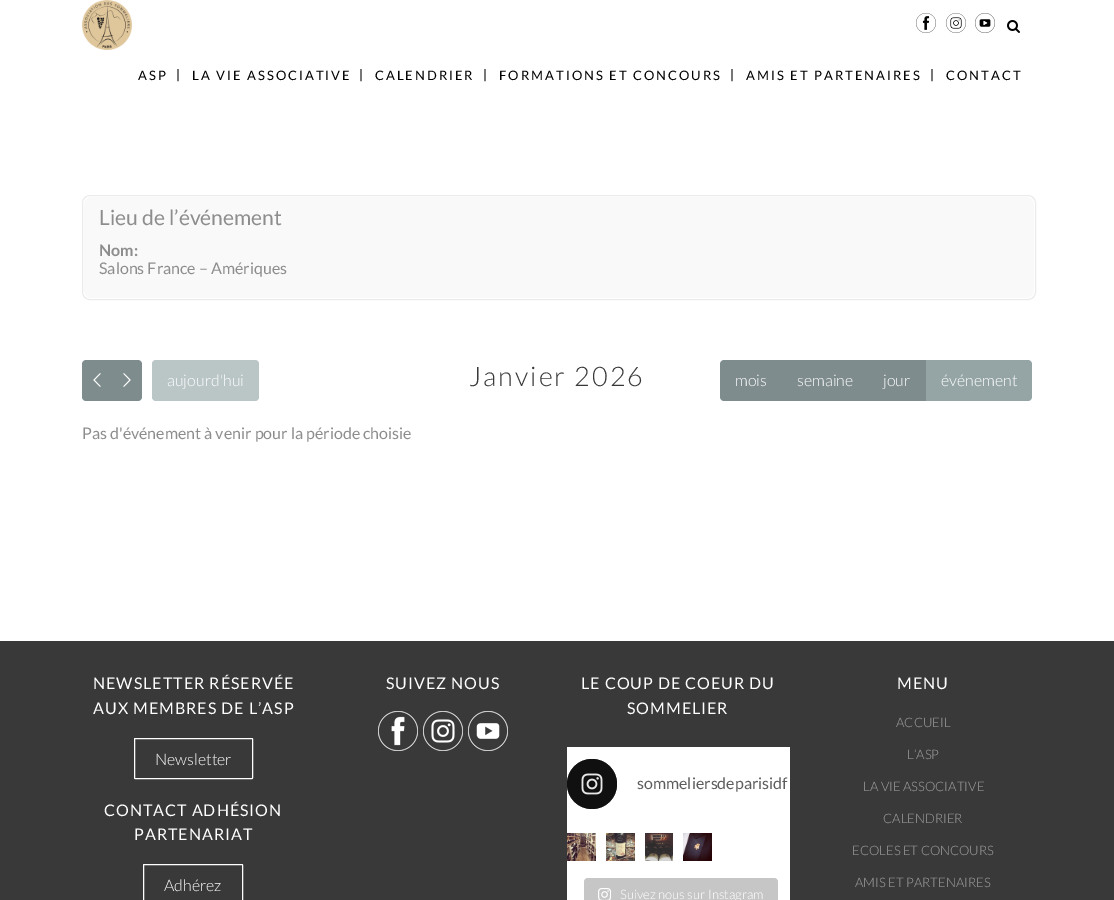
%!PS
<< /PageSize [1114 900] /PageUsesTransparency true >> setpagedevice
/rgb { 3 { 255 div 3 1 roll } repeat setrgbcolor } def
/font { [ exch dup neg 0 0 3 -1 roll 0 0 ] selectfont } def
/text { moveto show } def
/alpha { dup .setfillconstantalpha .setstrokeconstantalpha } def
/circle { newpath 0 360 arc closepath } def
/roundrect { 5 dict begin { /r /h /w /y /x } { exch def } forall
  x r add y moveto x w add y 2 copy h add r arct x w add y h add x 1 index r arct
  x y h add x y r arct x y 2 copy exch w add exch r arct closepath end } def
/picture { 5 dict begin { /h /w /y /x /name } { exch def } forall
  gsave x y translate w h scale
  w h 8 [w 0 0 h 0 0] name (r) file false 3 colorimage grestore end } def
0 .pushpdf14devicefilter
0 900 translate 1 -1 scale
4 setmiterlimit
255 255 255 rgb
0 0 1114 900 rectfill
(img_01.rgb) 82 0 50 50 picture
(img_02.rgb) 916 13 20 20 picture
(img_03.rgb) 946 13 20 20 picture
(img_04.rgb) 975 13 20 20 picture
(img_05.rgb) 1007 20 13 13 picture
235 235 235 rgb
82.5 195.5 953 104 7.5 roundrect stroke
249 249 249 rgb
84 197 950 101 8 roundrect fill
127 140 141 rgb
86 360 moveto 26 0 rlineto 0 41 rlineto -26 0 rlineto -2 0 -4 -2 -4 -4 rcurveto 0 -33 rlineto 0 -2 2 -4 4 -4 rcurveto closepath fill
(img_06.rgb) 93 373 8 14 picture
112 360 moveto 26 0 rlineto 2 0 4 2 4 4 rcurveto 0 33 rlineto 0 2 -2 4 -4 4 rcurveto -26 0 rlineto closepath fill
(img_07.rgb) 123 373 8 14 picture
186 197 197 rgb
152 360 107 41 4 roundrect fill
127 140 141 rgb
724 360 moveto 58 0 rlineto 0 41 rlineto -58 0 rlineto -2 0 -4 -2 -4 -4 rcurveto 0 -33 rlineto 0 -2 2 -4 4 -4 rcurveto closepath fill
782 360 144 41 rectfill
149 165 166 rgb
926 360 moveto 102 0 rlineto 2 0 4 2 4 4 rcurveto 0 33 rlineto 0 2 -2 4 -4 4 rcurveto -102 0 rlineto closepath fill
57 57 57 rgb
0 641 1114 259 rectfill
255 255 255 rgb
134.5 738.5 118 40 0.5 roundrect stroke
143.5 864.5 99 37 0.5 roundrect stroke
(img_08.rgb) 378 711 40 40 picture
(img_09.rgb) 423 711 40 40 picture
(img_10.rgb) 468 711 40 40 picture
567 747 223 153 rectfill
51 51 51 rgb
592 784 25 circle fill
0.68 alpha
0 0 0 rgb
592 784 25 circle fill
1 alpha
(img_11.rgb) 581 773 22 22 picture
(img_12.rgb) 567 833 29 28 picture
(img_13.rgb) 606 833 29 28 picture
(img_14.rgb) 645 833 28 28 picture
(img_15.rgb) 683 833 29 28 picture
198 198 198 rgb
584 878 194 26 4 roundrect fill
(img_16.rgb) 598 888 13 12 picture
/Lato-Regular 13 font
0 0 0 rgb
138 80 moveto 2 0 (ASP) ashow
(|) 176 79 text
192 80 moveto 2 0 (LA VIE ASSOCIATIVE) ashow
(|) 359 79 text
375 80 moveto 2 0 (CALENDRIER) ashow
(|) 483 79 text
499 80 moveto 2 0 (FORMATIONS ET CONCOURS) ashow
(|) 730 79 text
746 80 moveto 2 0 (AMIS ET PARTENAIRES) ashow
(|) 930 79 text
946 80 moveto 2 0 (CONTACT) ashow
/Lato-Regular 21 font
141 141 141 rgb
(Lieu de l’événement) 99 225 text
/Lato-Bold 16 font
(Nom:) 99 256 text
/Lato-Regular 16 font
(Salons France – Amériques) 99 274 text
/Lato-Light 16 font
255 255 255 rgb
(aujourd'hui) 167 386 text
/Lato-Light 27 font
57 57 57 rgb
469 386 moveto 2 0 (Janvier 2026) ashow
/Lato-Light 16 font
255 255 255 rgb
(mois) 735 386 text
(semaine) 797 386 text
(jour) 883 386 text
(événement) 941 386 text
/Lato-Regular 16 font
141 141 141 rgb
(Pas d'événement à venir pour la période choisie) 82 439 text
255 255 255 rgb
93 689 moveto 1 0 (NEWSLETTER RÉSERVÉE) ashow
93 714 moveto 1 0 (AUX MEMBRES DE L’ASP) ashow
/Lato-Light 16 font
(Newsletter) 155 765 text
/Lato-Regular 16 font
104 816 moveto 1 0 (CONTACT ADHÉSION) ashow
134 840 moveto 1 0 (PARTENARIAT) ashow
/Lato-Light 16 font
(Adhérez) 164 891 text
/Lato-Regular 16 font
386 689 moveto 1 0 (SUIVEZ NOUS) ashow
581 689 moveto 1 0 (LE COUP DE COEUR DU) ashow
627 714 moveto 1 0 (SOMMELIER) ashow
93 93 93 rgb
(sommeliersdeparisidf) 637 789 text
/Lato-Light 13 font
255 255 255 rgb
(Suivez nous sur Instagram) 620 899 text
/Lato-Regular 16 font
897 689 moveto 1 0 (MENU) ashow
/Lato-Light 13 font
162 162 162 rgb
(ACCUEIL) 896 727 text
(L’ASP) 907 759 text
(LA VIE ASSOCIATIVE) 863 791 text
(CALENDRIER) 883 823 text
(ECOLES ET CONCOURS) 852 855 text
(AMIS ET PARTENAIRES) 855 887 text
.poppdf14devicefilter showpage
